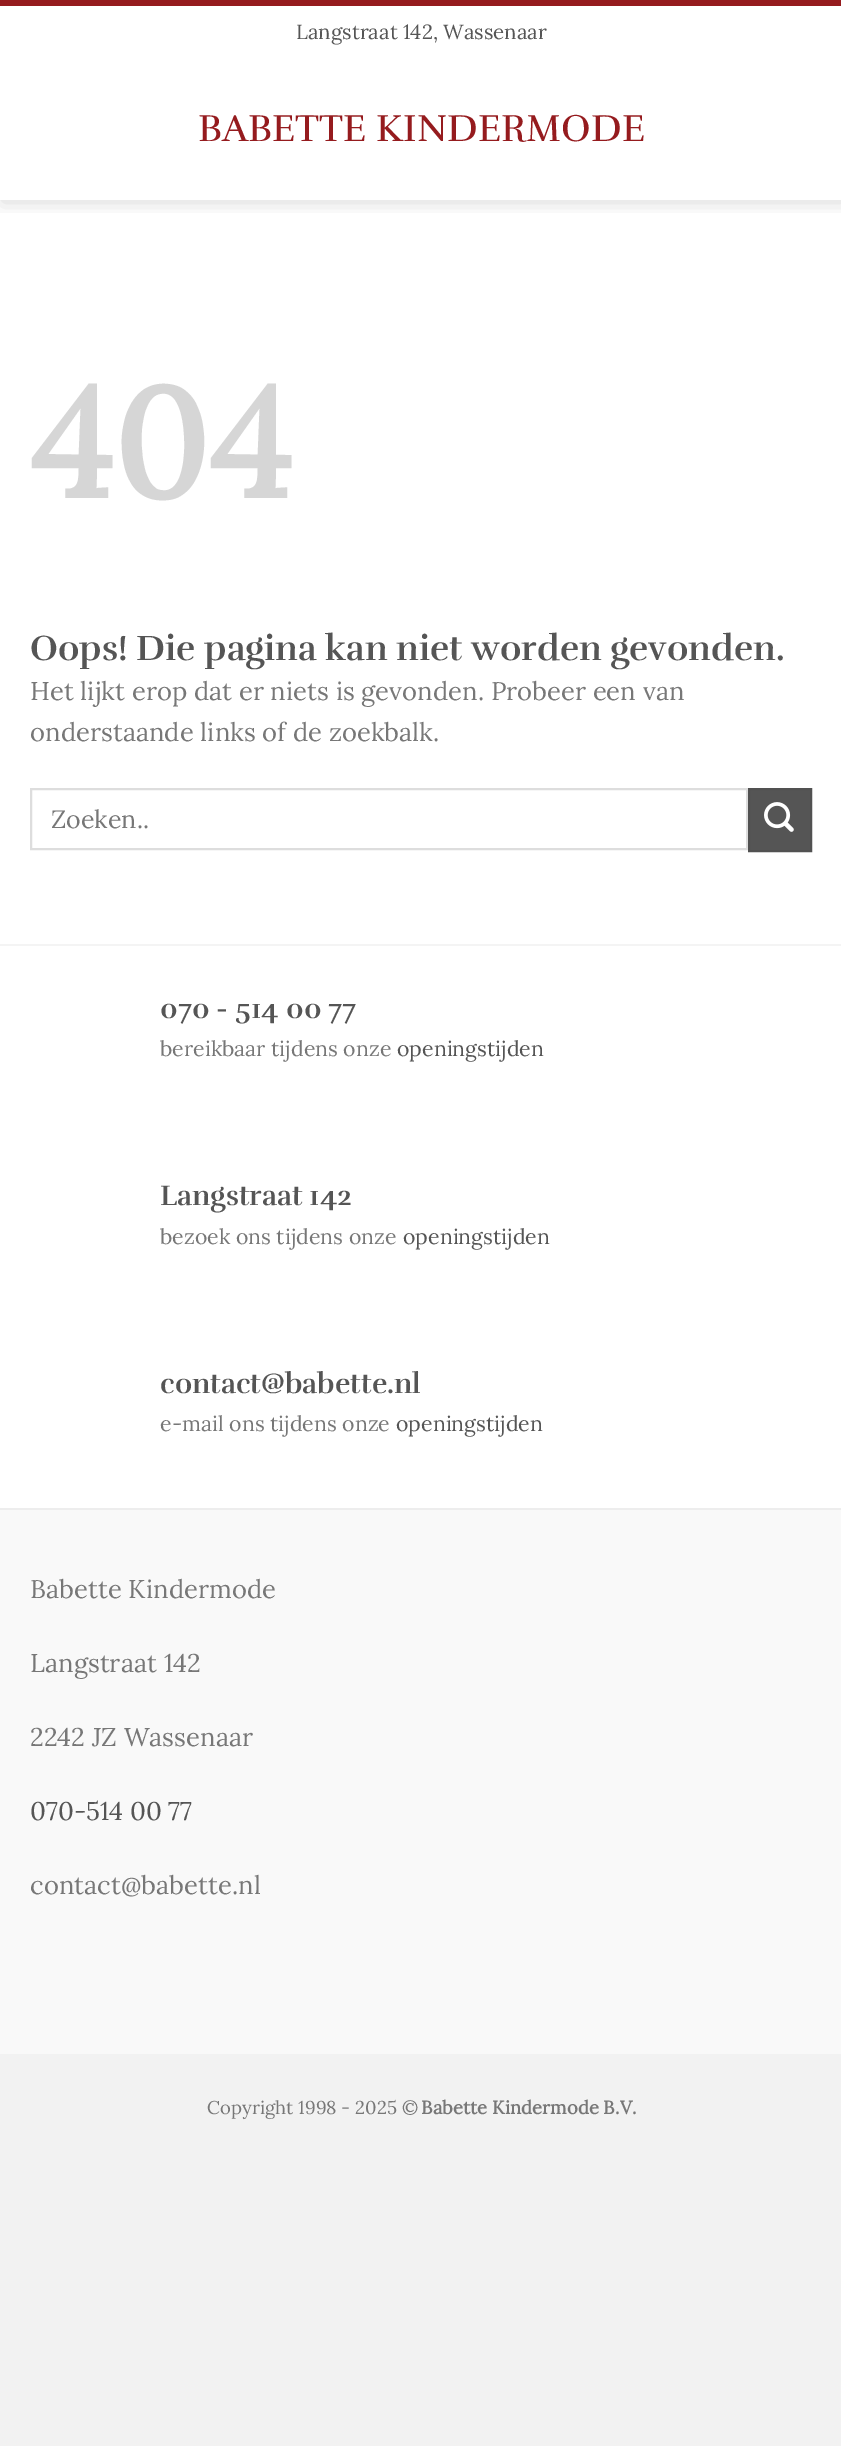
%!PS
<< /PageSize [841 2446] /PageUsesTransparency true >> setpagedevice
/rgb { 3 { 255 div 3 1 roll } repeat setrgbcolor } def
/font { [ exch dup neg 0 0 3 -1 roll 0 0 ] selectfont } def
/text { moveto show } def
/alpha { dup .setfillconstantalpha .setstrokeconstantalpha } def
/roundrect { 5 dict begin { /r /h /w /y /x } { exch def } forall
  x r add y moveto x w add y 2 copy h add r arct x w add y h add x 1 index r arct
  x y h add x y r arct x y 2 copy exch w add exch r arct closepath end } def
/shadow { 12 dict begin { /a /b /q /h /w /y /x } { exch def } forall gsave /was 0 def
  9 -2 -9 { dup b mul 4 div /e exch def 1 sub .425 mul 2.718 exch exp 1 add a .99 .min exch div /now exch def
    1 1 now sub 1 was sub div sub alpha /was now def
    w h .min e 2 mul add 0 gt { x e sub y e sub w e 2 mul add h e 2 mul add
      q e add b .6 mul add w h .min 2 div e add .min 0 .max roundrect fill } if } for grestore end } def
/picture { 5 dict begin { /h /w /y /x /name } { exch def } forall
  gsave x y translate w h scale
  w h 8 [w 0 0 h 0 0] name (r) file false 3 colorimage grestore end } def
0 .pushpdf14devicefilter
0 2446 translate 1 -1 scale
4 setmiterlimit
242 242 242 rgb
0 0 841 2446 rectfill
255 255 255 rgb
0 6 841 1502 rectfill
gsave
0 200 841 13 rectclip
0 0 0 rgb
2 2 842 200 0 10 0.15 shadow
grestore
149 27 30 rgb
0 0 841 6 rectfill
221 221 221 rgb
2 setlinewidth
31 789 716 60 rectstroke
85 85 85 rgb
749 789 moveto 62 0 rlineto 0 62 rlineto -62 0 rlineto closepath gsave fill grestore
81 81 81 rgb
stroke
(img_01.rgb) 764 802 30 30 picture
244 244 244 rgb
0 944 841 2 rectfill
249 249 249 rgb
0 1510 841 544 rectfill
237 237 237 rgb
0 1508 841 2 rectfill
/Lora-Regular 20.5 font
85 85 85 rgb
(Langstraat 142, Wassenaar) 296 39 text
/Rufina-Regular 38.4 font
149 27 30 rgb
(BABETTE KINDERMODE) 198 141 text
/Lora-Bold 154 font
214 214 214 rgb
(404) 30 498 text
/Rufina-Bold 35.8 font
85 85 85 rgb
(Oops! Die pagina kan niet worden gevonden.) 30 660 text
/Lora-Regular 25.6 font
119 119 119 rgb
(Het lijkt erop dat er niets is gevonden. Probeer een van) 30 700 text
(onderstaande links of de zoekbalk.) 30 741 text
/Lora-Regular 25 font
(Zoeken..) 51 828 text
/Rufina-Bold 28.75 font
85 85 85 rgb
(070 - 514 00 77) 160 1018 text
/Lora-Regular 21.25 font
119 119 119 rgb
(bereikbaar tijdens onze) 160 1056 text
85 85 85 rgb
(openingstijden) 397 1056 text
/Rufina-Bold 28.75 font
(Langstraat 142) 160 1205 text
/Lora-Regular 21.25 font
119 119 119 rgb
(bezoek ons tijdens onze) 160 1244 text
85 85 85 rgb
(openingstijden) 403 1244 text
/Rufina-Bold 28.75 font
(contact@babette.nl) 160 1393 text
/Lora-Regular 21.25 font
119 119 119 rgb
(e-mail ons tijdens onze) 160 1431 text
85 85 85 rgb
(openingstijden) 396 1431 text
/Lora-Regular 25.6 font
119 119 119 rgb
(Babette Kindermode) 30 1598 text
(Langstraat 142) 30 1672 text
(2242 JZ Wassenaar) 30 1746 text
85 85 85 rgb
(070-514 00 77) 30 1820 text
119 119 119 rgb
(contact@babette.nl) 30 1894 text
/Lora-Regular 18.5 font
(Copyright 1998 - 2025 ©) 207 2114 text
/Lora-Bold 18.5 font
(Babette Kindermode B.V.) 421 2114 text
.poppdf14devicefilter showpage
